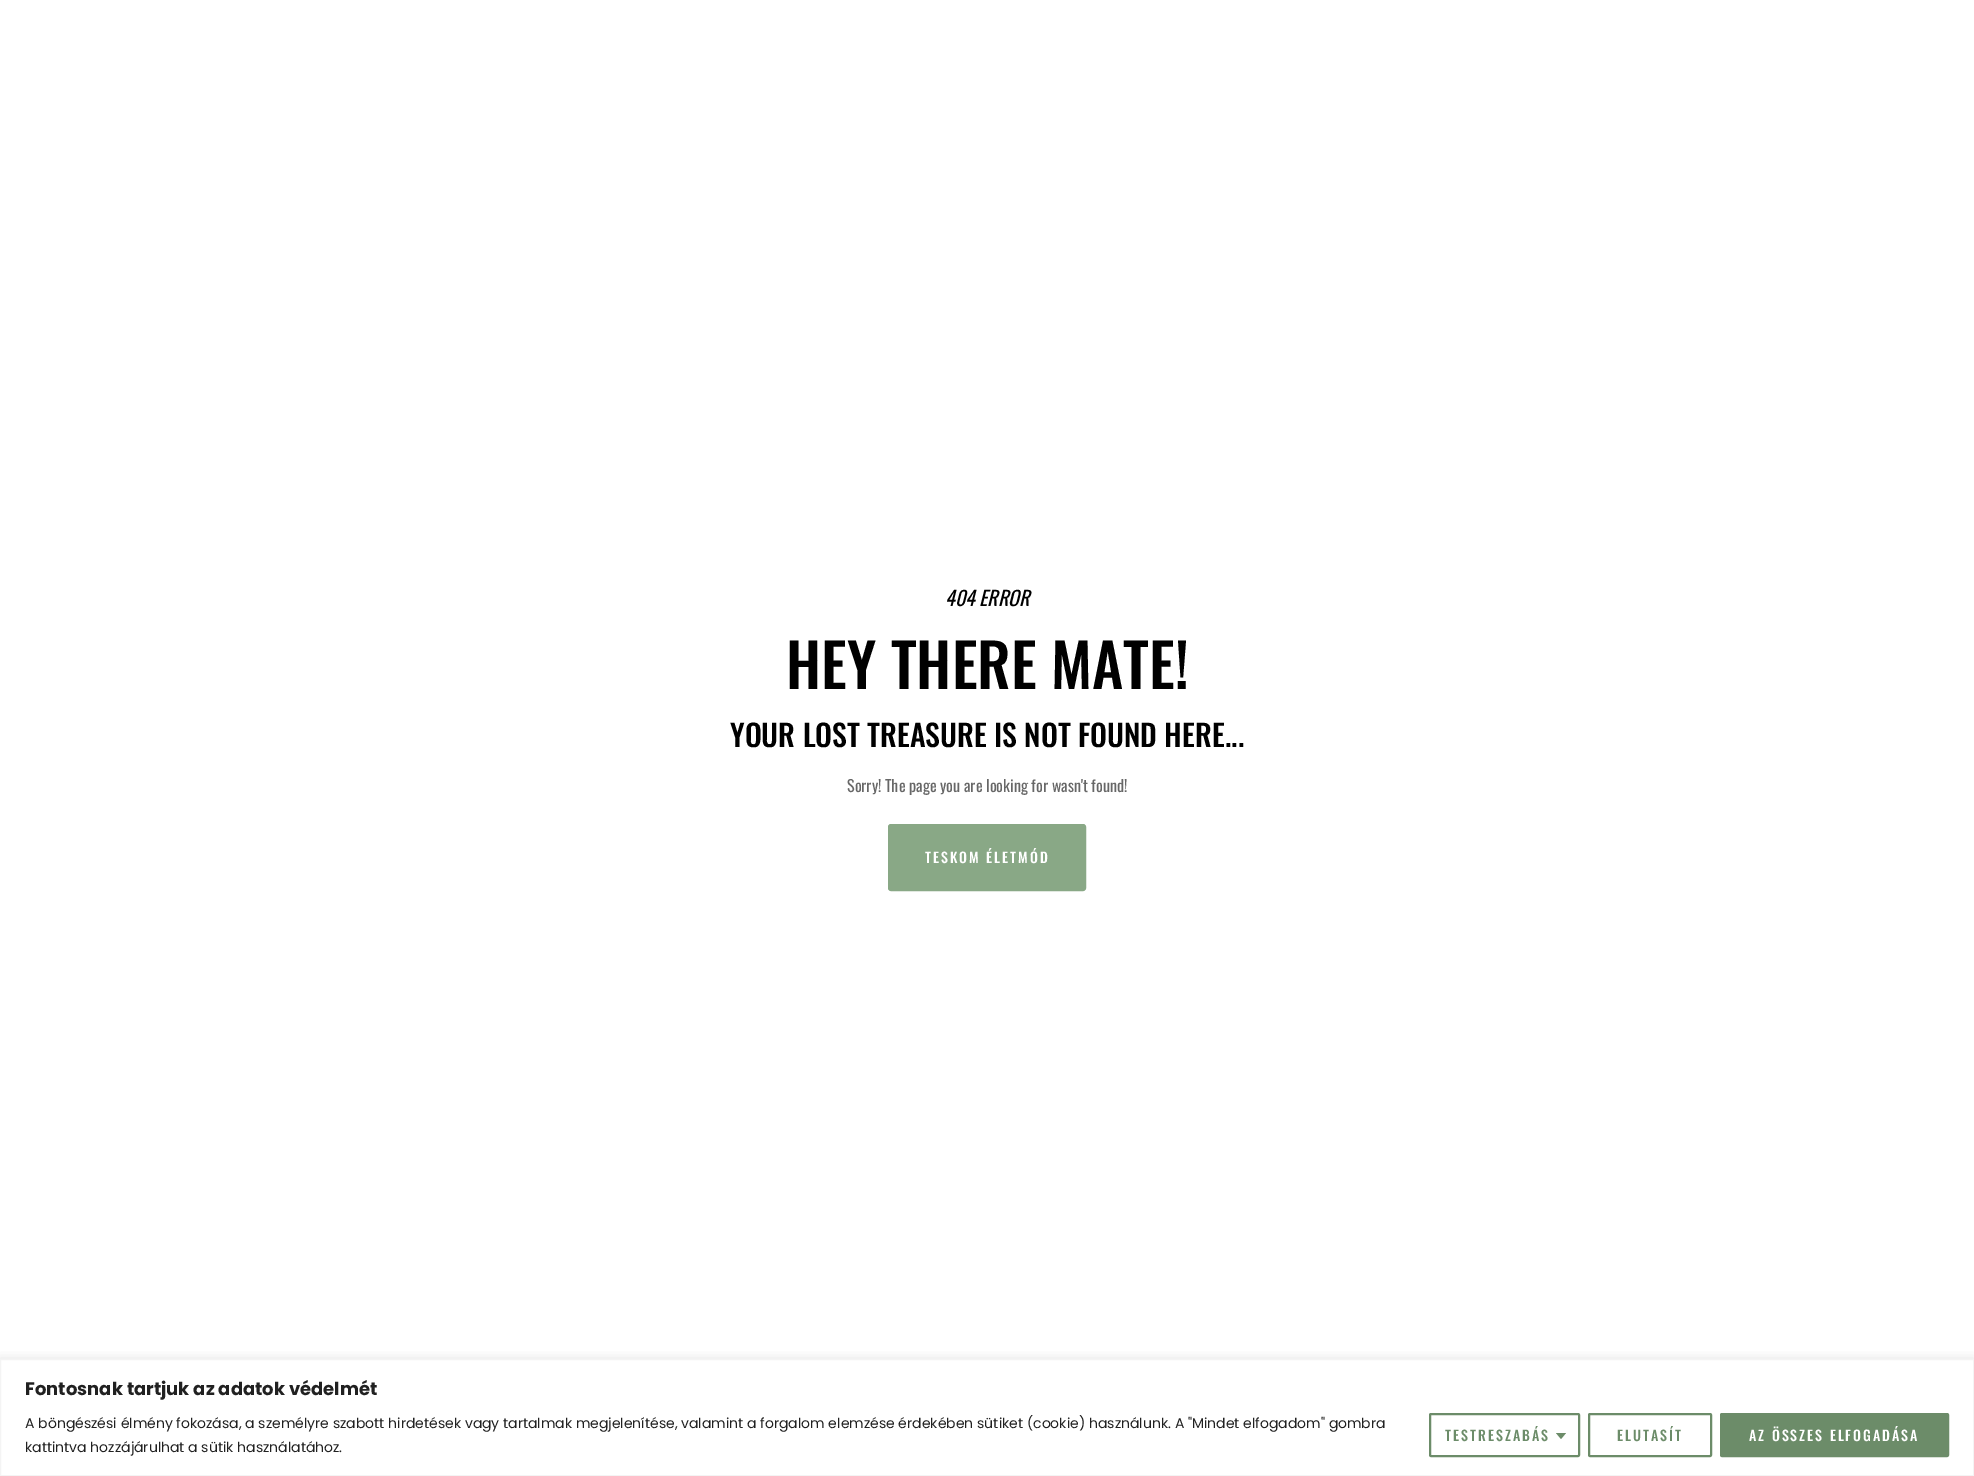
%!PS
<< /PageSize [1974 1476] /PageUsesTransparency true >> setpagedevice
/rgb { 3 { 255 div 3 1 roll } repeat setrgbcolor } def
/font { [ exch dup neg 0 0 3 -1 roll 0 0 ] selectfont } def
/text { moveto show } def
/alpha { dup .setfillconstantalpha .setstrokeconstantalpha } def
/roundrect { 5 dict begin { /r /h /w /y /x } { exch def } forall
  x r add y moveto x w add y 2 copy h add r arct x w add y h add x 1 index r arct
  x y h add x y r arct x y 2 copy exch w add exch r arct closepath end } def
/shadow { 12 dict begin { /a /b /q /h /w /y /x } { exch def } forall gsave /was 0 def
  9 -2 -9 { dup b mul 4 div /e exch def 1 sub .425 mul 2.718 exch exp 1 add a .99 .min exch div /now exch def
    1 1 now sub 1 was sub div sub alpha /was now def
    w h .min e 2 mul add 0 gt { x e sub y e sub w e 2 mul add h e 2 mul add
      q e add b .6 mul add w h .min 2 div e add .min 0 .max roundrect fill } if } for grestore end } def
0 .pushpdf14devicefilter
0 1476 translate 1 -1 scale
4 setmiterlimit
255 255 255 rgb
0 0 1974 1476 rectfill
137 168 134 rgb
888.5 824.5 197 66 2.5 roundrect gsave fill grestore
stroke
gsave
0 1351 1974 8 rectclip
172 171 171 rgb
0 1358 1974 117 0 5 0.3 shadow
grestore
244 244 244 rgb
0.5 1359.5 1973 116 rectstroke
108 140 105 rgb
2 setlinewidth
1430 1414 149 42 1 roundrect stroke
1556 1433 moveto 10 0 rlineto -5 6 rlineto closepath fill
1589 1414 122 42 1 roundrect stroke
1721 1414 227 42 1 roundrect gsave fill grestore
stroke
/Oswald-Italic 20 font
0 0 0 rgb
(404 ERROR) 945 606 text
/Oswald-Medium 60 font
(HEY THERE MATE!) 786 689 text
/Oswald-Medium 30 font
(YOUR LOST TREASURE IS NOT FOUND HERE...) 730 747 text
/Oswald-Regular 16 font
103 103 103 rgb
(Sorry! The page you are looking for wasn't found!) 847 792 text
/Oswald-Medium 14 font
255 255 255 rgb
925 863 moveto 2 0 (TESKOM ÉLETMÓD) ashow
/Poppins-Bold 18 font
33 33 33 rgb
(Fontosnak tartjuk az adatok védelmét) 25 1395 text
/Poppins-Regular 14 font
(A böngészési élmény fokozása, a személyre szabott hirdetések vagy tartalmak megjelenítése, valamint a forgalom elemzése érdekében sütiket \(cookie\) használunk. A "Mindet elfogadom" gombra) 25 1428 text
(kattintva hozzájárulhat a sütik használatához.) 25 1452 text
/Oswald-Medium 14 font
108 140 105 rgb
1445 1441 moveto 2 0 (TESTRESZABÁS) ashow
1617 1441 moveto 2 0 (ELUTASÍT) ashow
255 255 255 rgb
1749 1441 moveto 2 0 (AZ ÖSSZES ELFOGADÁSA) ashow
.poppdf14devicefilter showpage
